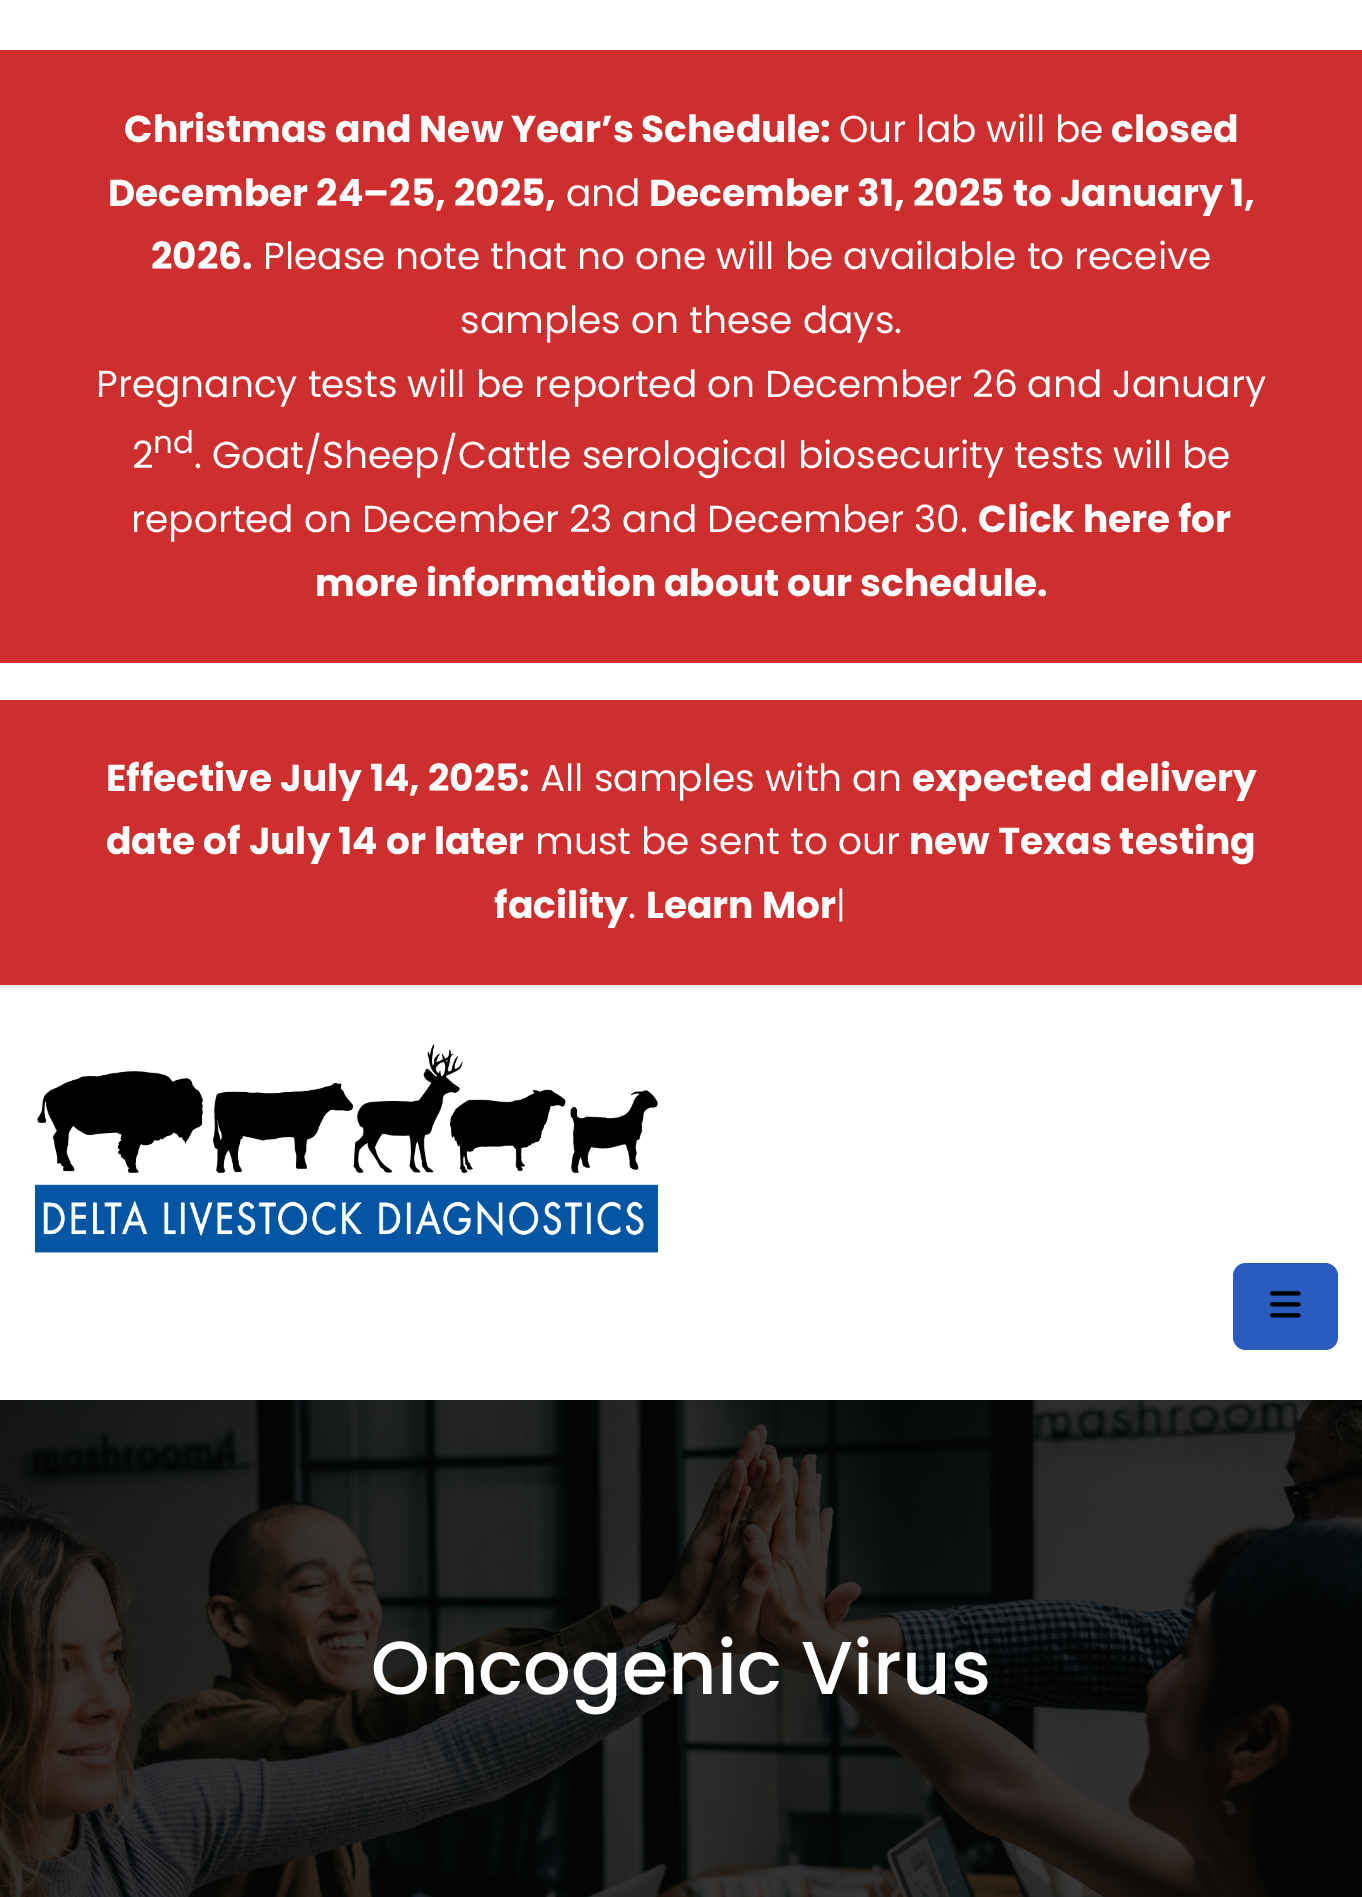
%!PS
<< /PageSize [1362 1897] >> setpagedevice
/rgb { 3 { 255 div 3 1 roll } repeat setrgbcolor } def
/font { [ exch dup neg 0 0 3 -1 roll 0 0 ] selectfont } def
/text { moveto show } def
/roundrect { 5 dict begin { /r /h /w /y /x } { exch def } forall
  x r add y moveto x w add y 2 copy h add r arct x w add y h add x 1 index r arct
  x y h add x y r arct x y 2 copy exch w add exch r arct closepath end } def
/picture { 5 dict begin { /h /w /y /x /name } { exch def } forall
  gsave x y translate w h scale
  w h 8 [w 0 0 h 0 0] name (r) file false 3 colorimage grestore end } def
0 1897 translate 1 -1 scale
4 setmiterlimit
255 255 255 rgb
0 0 1362 1897 rectfill
207 46 46 rgb
0 50 1362 613 rectfill
0 700 1362 285 rectfill
238 240 243 rgb
0 985 1362 3 rectfill
(img_01.rgb) 35 1044 623 209 picture
41 92 188 rgb
1233 1263 105 87 13 roundrect fill
(img_02.rgb) 1270 1291 31 27 picture
(img_03.rgb) 0 1400 1362 497 picture
/Poppins-Bold 37.5 font
255 255 255 rgb
(Christmas and New Year’s Schedule:) 124 142 text
/Poppins-Regular 37.5 font
(Our lab will be) 839 142 text
/Poppins-Bold 37.5 font
(closed) 1111 142 text
(December 24–25, 2025,) 108 206 text
/Poppins-Regular 37.5 font
(and) 566 206 text
/Poppins-Bold 37.5 font
(December 31, 2025 to January 1,) 649 206 text
(2026.) 151 269 text
/Poppins-Regular 37.5 font
(Please note that no one will be available to receive) 263 269 text
(samples on these days.) 460 333 text
(Pregnancy tests will be reported on December 26 and January) 96 397 text
(2) 132 468 text
/Poppins-Regular 31 font
(nd) 153 453 text
/Poppins-Regular 37.5 font
(. Goat/Sheep/Cattle serological biosecurity tests will be) 194 468 text
(reported on December 23 and December 30.) 131 532 text
/Poppins-Bold 37.5 font
(Click here for) 978 532 text
(more information about our schedule.) 315 596 text
(Effective July 14, 2025:) 106 791 text
/Poppins-Regular 37.5 font
(All samples with an) 540 791 text
/Poppins-Bold 37.5 font
(expected delivery) 912 791 text
(date of July 14 or later) 106 854 text
/Poppins-Regular 37.5 font
(must be sent to our) 535 854 text
/Poppins-Bold 37.5 font
(new Texas testing) 909 854 text
(facility) 494 918 text
/Poppins-Regular 37.5 font
(.) 628 918 text
/Poppins-Bold 37.5 font
(Learn Mor) 646 918 text
/Poppins-Light 37.5 font
(|) 836 918 text
/Poppins-Medium 75 font
(Oncogenic Virus) 371 1694 text
showpage
